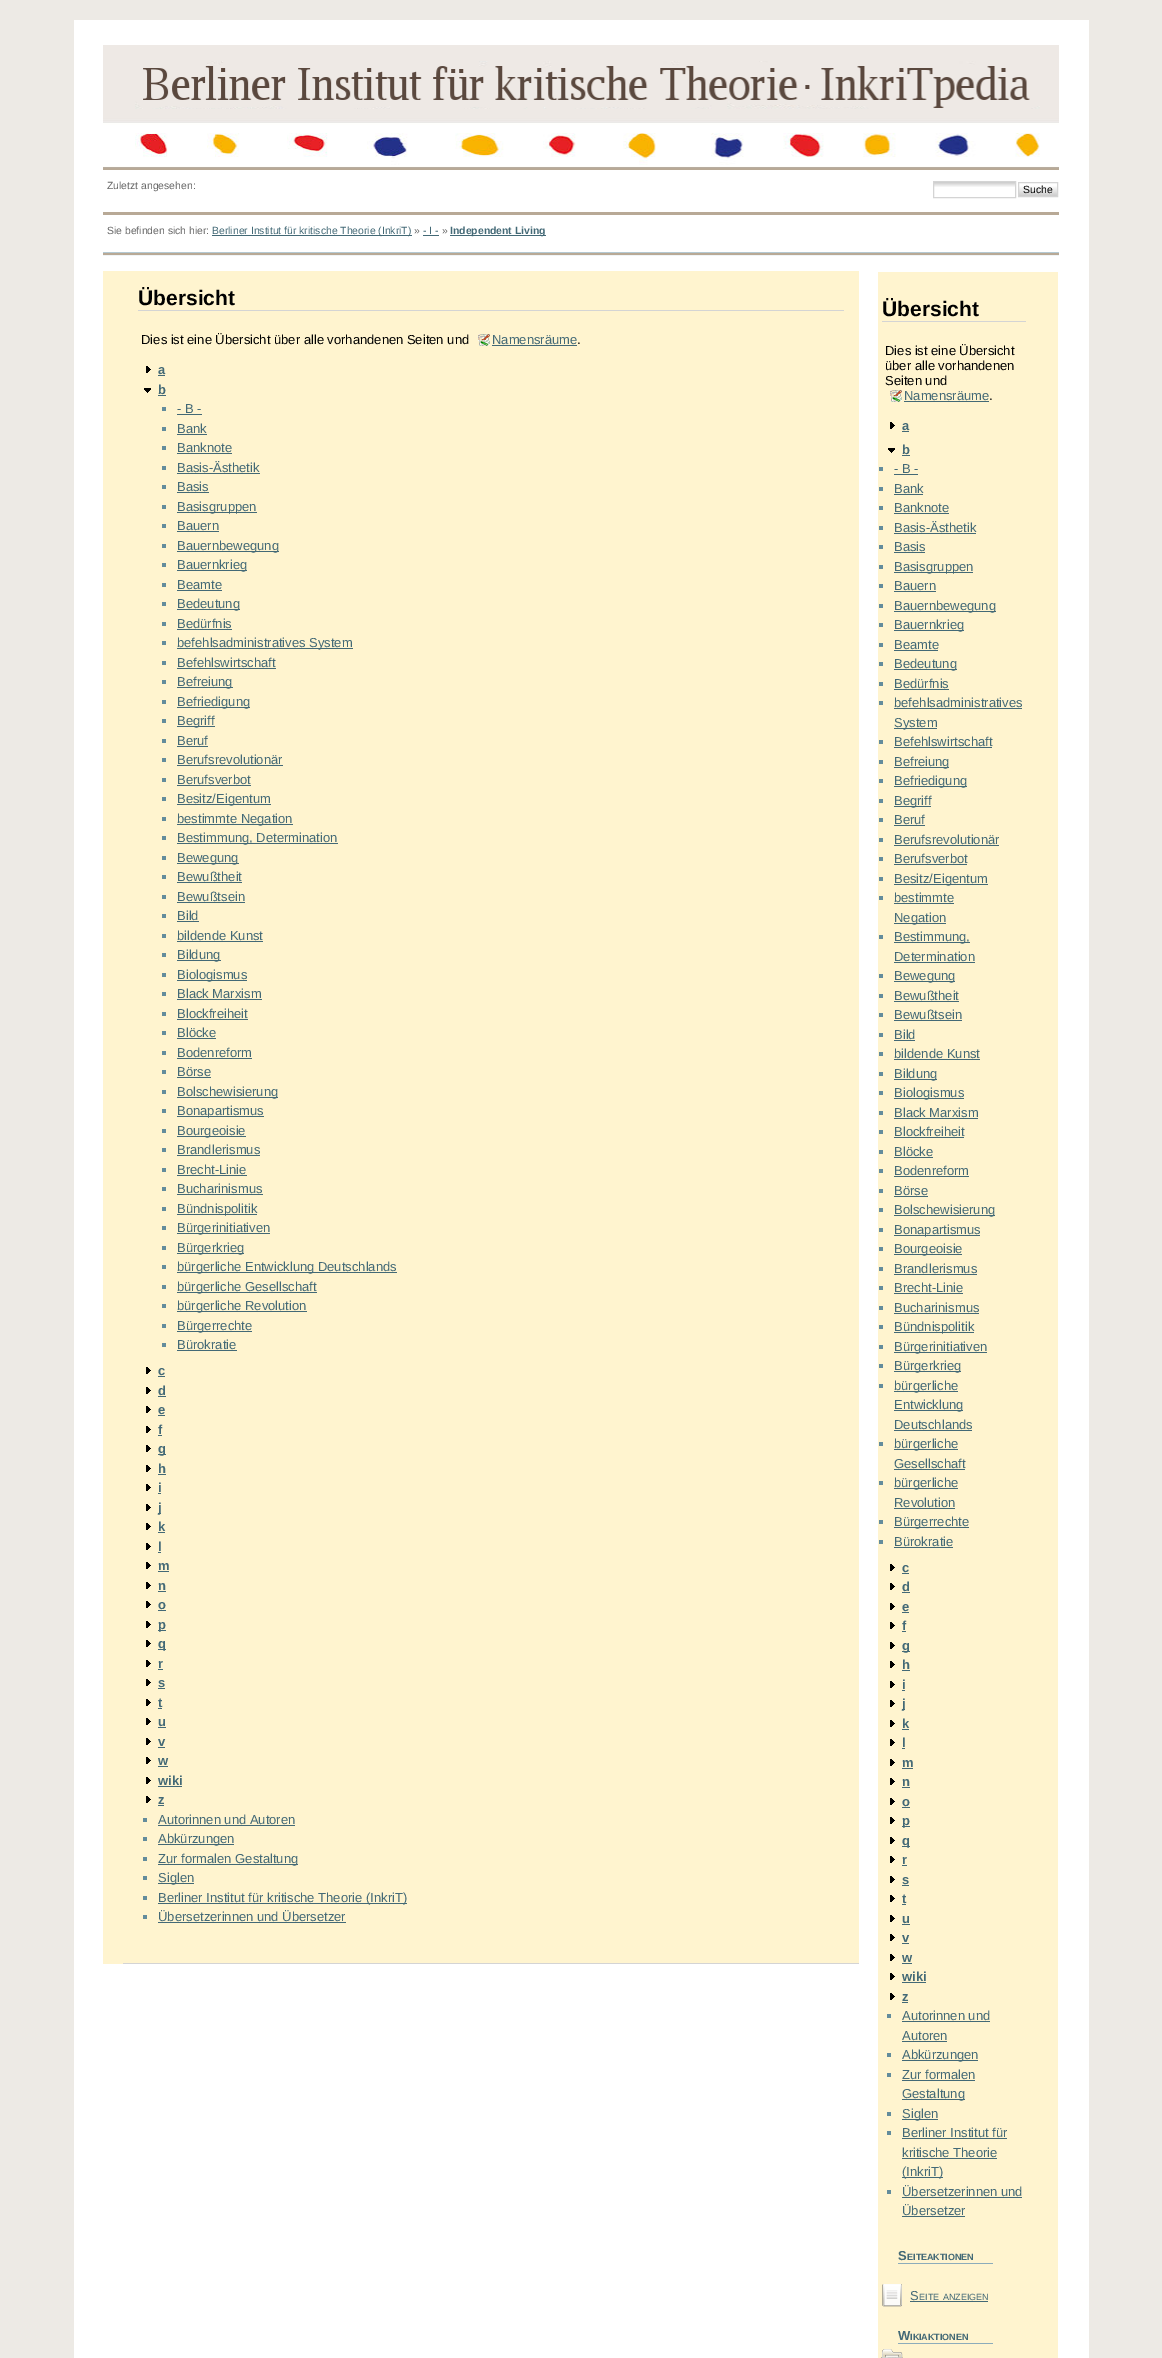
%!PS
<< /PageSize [1162 2358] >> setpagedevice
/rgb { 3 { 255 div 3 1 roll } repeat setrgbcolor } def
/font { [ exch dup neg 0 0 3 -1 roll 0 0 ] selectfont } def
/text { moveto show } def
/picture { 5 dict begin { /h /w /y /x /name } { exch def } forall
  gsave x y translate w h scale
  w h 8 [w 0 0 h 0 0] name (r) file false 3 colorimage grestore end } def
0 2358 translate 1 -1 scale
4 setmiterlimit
237 234 229 rgb
0 0 1162 2358 rectfill
255 255 255 rgb
74 20 1015 2338 rectfill
(img_01.rgb) 103 45 956 125 picture
(img_02.rgb) 934 182 81 5 picture
212 212 212 rgb
933.5 181.5 82 16 rectstroke
(img_03.rgb) 1019 186 38 10 picture
1018.5 182.5 39 14 rectstroke
184 169 150 rgb
103 212 956 3 rectfill
67 105 118 rgb
212 235 200 1 rectfill
423 235 16 1 rectfill
450 235 96 1 rectfill
180 201 211 rgb
103 252 956 1 rectfill
184 169 150 rgb
103 253 956 2 rectfill
240 244 246 rgb
103 255 956 1 rectfill
255 244 207 rgb
103 271 756 1693 rectfill
212 212 212 rgb
123 1963 736 1 rectfill
138 310 706 1 rectfill
(img_04.rgb) 478 334 12 12 picture
67 105 118 rgb
492 345 85 1 rectfill
(img_05.rgb) 146 366 5 7 picture
158 375 7 1 rectfill
(img_06.rgb) 144 388 7 5 picture
158 395 8 1 rectfill
99 140 156 rgb
162 407 4 4 rectfill
67 105 118 rgb
177 414 25 1 rectfill
99 140 156 rgb
162 427 4 4 rectfill
67 105 118 rgb
177 434 30 1 rectfill
99 140 156 rgb
162 446 4 4 rectfill
67 105 118 rgb
177 453 55 1 rectfill
99 140 156 rgb
162 466 4 4 rectfill
67 105 118 rgb
177 473 83 1 rectfill
99 140 156 rgb
162 485 4 4 rectfill
67 105 118 rgb
177 492 32 1 rectfill
99 140 156 rgb
162 505 4 4 rectfill
67 105 118 rgb
177 512 80 1 rectfill
99 140 156 rgb
162 524 4 4 rectfill
67 105 118 rgb
177 531 42 1 rectfill
99 140 156 rgb
162 544 4 4 rectfill
67 105 118 rgb
177 551 102 1 rectfill
99 140 156 rgb
162 563 4 4 rectfill
67 105 118 rgb
177 570 70 1 rectfill
99 140 156 rgb
162 583 4 4 rectfill
67 105 118 rgb
177 590 45 1 rectfill
99 140 156 rgb
162 602 4 4 rectfill
67 105 118 rgb
177 609 63 1 rectfill
99 140 156 rgb
162 622 4 4 rectfill
67 105 118 rgb
177 629 55 1 rectfill
99 140 156 rgb
162 641 4 4 rectfill
67 105 118 rgb
177 648 176 1 rectfill
99 140 156 rgb
162 661 4 4 rectfill
67 105 118 rgb
177 668 99 1 rectfill
99 140 156 rgb
162 680 4 4 rectfill
67 105 118 rgb
177 687 56 1 rectfill
99 140 156 rgb
162 700 4 4 rectfill
67 105 118 rgb
177 707 73 1 rectfill
99 140 156 rgb
162 719 4 4 rectfill
67 105 118 rgb
177 726 38 1 rectfill
99 140 156 rgb
162 739 4 4 rectfill
67 105 118 rgb
177 746 31 1 rectfill
99 140 156 rgb
162 758 4 4 rectfill
67 105 118 rgb
177 765 106 1 rectfill
99 140 156 rgb
162 778 4 4 rectfill
67 105 118 rgb
177 785 74 1 rectfill
99 140 156 rgb
162 797 4 4 rectfill
67 105 118 rgb
177 804 94 1 rectfill
99 140 156 rgb
162 817 4 4 rectfill
67 105 118 rgb
177 824 116 1 rectfill
99 140 156 rgb
162 836 4 4 rectfill
67 105 118 rgb
177 843 161 1 rectfill
99 140 156 rgb
162 856 4 4 rectfill
67 105 118 rgb
177 863 62 1 rectfill
99 140 156 rgb
162 875 4 4 rectfill
67 105 118 rgb
177 882 65 1 rectfill
99 140 156 rgb
162 895 4 4 rectfill
67 105 118 rgb
177 902 68 1 rectfill
99 140 156 rgb
162 914 4 4 rectfill
67 105 118 rgb
177 921 22 1 rectfill
99 140 156 rgb
162 934 4 4 rectfill
67 105 118 rgb
177 941 86 1 rectfill
99 140 156 rgb
162 953 4 4 rectfill
67 105 118 rgb
177 960 44 1 rectfill
99 140 156 rgb
162 973 4 4 rectfill
67 105 118 rgb
177 980 70 1 rectfill
99 140 156 rgb
162 992 4 4 rectfill
67 105 118 rgb
177 999 85 1 rectfill
99 140 156 rgb
162 1012 4 4 rectfill
67 105 118 rgb
177 1019 71 1 rectfill
99 140 156 rgb
162 1031 4 4 rectfill
67 105 118 rgb
177 1038 39 1 rectfill
99 140 156 rgb
162 1051 4 4 rectfill
67 105 118 rgb
177 1058 75 1 rectfill
99 140 156 rgb
162 1070 4 4 rectfill
67 105 118 rgb
177 1077 34 1 rectfill
99 140 156 rgb
162 1090 4 4 rectfill
67 105 118 rgb
177 1097 101 1 rectfill
99 140 156 rgb
162 1109 4 4 rectfill
67 105 118 rgb
177 1116 87 1 rectfill
99 140 156 rgb
162 1129 4 4 rectfill
67 105 118 rgb
177 1136 69 1 rectfill
99 140 156 rgb
162 1148 4 4 rectfill
67 105 118 rgb
177 1155 83 1 rectfill
99 140 156 rgb
162 1168 4 4 rectfill
67 105 118 rgb
177 1175 70 1 rectfill
99 140 156 rgb
162 1187 4 4 rectfill
67 105 118 rgb
177 1194 86 1 rectfill
99 140 156 rgb
162 1207 4 4 rectfill
67 105 118 rgb
177 1214 80 1 rectfill
99 140 156 rgb
162 1226 4 4 rectfill
67 105 118 rgb
177 1233 93 1 rectfill
99 140 156 rgb
162 1246 4 4 rectfill
67 105 118 rgb
177 1253 67 1 rectfill
99 140 156 rgb
162 1265 4 4 rectfill
67 105 118 rgb
177 1272 220 1 rectfill
99 140 156 rgb
162 1285 4 4 rectfill
67 105 118 rgb
177 1292 140 1 rectfill
99 140 156 rgb
162 1304 4 4 rectfill
67 105 118 rgb
177 1311 130 1 rectfill
99 140 156 rgb
162 1324 4 4 rectfill
67 105 118 rgb
177 1331 75 1 rectfill
99 140 156 rgb
162 1343 4 4 rectfill
67 105 118 rgb
177 1350 60 1 rectfill
(img_05.rgb) 146 1367 5 7 picture
158 1376 7 1 rectfill
(img_05.rgb) 146 1387 5 7 picture
158 1396 8 1 rectfill
(img_05.rgb) 146 1406 5 7 picture
158 1415 7 1 rectfill
(img_05.rgb) 146 1426 5 7 picture
158 1435 4 1 rectfill
(img_05.rgb) 146 1445 5 7 picture
158 1454 8 1 rectfill
(img_05.rgb) 146 1465 5 7 picture
158 1474 8 1 rectfill
(img_05.rgb) 146 1484 5 7 picture
158 1493 3 1 rectfill
(img_05.rgb) 146 1504 5 7 picture
158 1513 3 1 rectfill
(img_05.rgb) 146 1523 5 7 picture
158 1532 7 1 rectfill
(img_05.rgb) 146 1543 5 7 picture
158 1552 3 1 rectfill
(img_05.rgb) 146 1562 5 7 picture
158 1571 11 1 rectfill
(img_05.rgb) 146 1582 5 7 picture
158 1591 8 1 rectfill
(img_05.rgb) 146 1601 5 7 picture
158 1610 8 1 rectfill
(img_05.rgb) 146 1621 5 7 picture
158 1630 8 1 rectfill
(img_05.rgb) 146 1640 5 7 picture
158 1649 8 1 rectfill
(img_05.rgb) 146 1660 5 7 picture
158 1669 5 1 rectfill
(img_05.rgb) 146 1679 5 7 picture
158 1688 7 1 rectfill
(img_05.rgb) 146 1699 5 7 picture
158 1708 4 1 rectfill
(img_05.rgb) 146 1718 5 7 picture
158 1727 8 1 rectfill
(img_05.rgb) 146 1738 5 7 picture
158 1747 7 1 rectfill
(img_05.rgb) 146 1757 5 7 picture
158 1766 10 1 rectfill
(img_05.rgb) 146 1777 5 7 picture
158 1786 24 1 rectfill
(img_05.rgb) 146 1796 5 7 picture
158 1805 6 1 rectfill
99 140 156 rgb
143 1818 4 4 rectfill
67 105 118 rgb
158 1825 137 1 rectfill
99 140 156 rgb
143 1837 4 4 rectfill
67 105 118 rgb
158 1844 76 1 rectfill
99 140 156 rgb
143 1857 4 4 rectfill
67 105 118 rgb
158 1864 140 1 rectfill
99 140 156 rgb
143 1876 4 4 rectfill
67 105 118 rgb
158 1883 36 1 rectfill
99 140 156 rgb
143 1896 4 4 rectfill
67 105 118 rgb
158 1903 249 1 rectfill
99 140 156 rgb
143 1915 4 4 rectfill
67 105 118 rgb
158 1922 188 1 rectfill
255 244 207 rgb
878 272 180 2086 rectfill
212 212 212 rgb
882 321 144 1 rectfill
(img_04.rgb) 890 390 12 12 picture
67 105 118 rgb
904 401 85 1 rectfill
(img_05.rgb) 890 422 5 7 picture
902 431 7 1 rectfill
(img_06.rgb) 888 448 7 5 picture
902 455 8 1 rectfill
99 140 156 rgb
879 467 4 4 rectfill
67 105 118 rgb
894 474 24 1 rectfill
99 140 156 rgb
879 487 4 4 rectfill
67 105 118 rgb
894 494 29 1 rectfill
99 140 156 rgb
879 506 4 4 rectfill
67 105 118 rgb
894 513 55 1 rectfill
99 140 156 rgb
879 526 4 4 rectfill
67 105 118 rgb
894 533 82 1 rectfill
99 140 156 rgb
879 545 4 4 rectfill
67 105 118 rgb
894 552 31 1 rectfill
99 140 156 rgb
879 565 4 4 rectfill
67 105 118 rgb
894 572 79 1 rectfill
99 140 156 rgb
879 584 4 4 rectfill
67 105 118 rgb
894 591 42 1 rectfill
99 140 156 rgb
879 604 4 4 rectfill
67 105 118 rgb
894 611 102 1 rectfill
99 140 156 rgb
879 623 4 4 rectfill
67 105 118 rgb
894 630 70 1 rectfill
99 140 156 rgb
879 643 4 4 rectfill
67 105 118 rgb
894 650 44 1 rectfill
99 140 156 rgb
879 662 4 4 rectfill
67 105 118 rgb
894 669 63 1 rectfill
99 140 156 rgb
879 682 4 4 rectfill
67 105 118 rgb
894 689 55 1 rectfill
99 140 156 rgb
879 701 4 4 rectfill
67 105 118 rgb
894 708 128 1 rectfill
894 728 43 1 rectfill
99 140 156 rgb
879 740 4 4 rectfill
67 105 118 rgb
894 747 98 1 rectfill
99 140 156 rgb
879 760 4 4 rectfill
67 105 118 rgb
894 767 55 1 rectfill
99 140 156 rgb
879 779 4 4 rectfill
67 105 118 rgb
894 786 73 1 rectfill
99 140 156 rgb
879 799 4 4 rectfill
67 105 118 rgb
894 806 37 1 rectfill
99 140 156 rgb
879 818 4 4 rectfill
67 105 118 rgb
894 825 31 1 rectfill
99 140 156 rgb
879 838 4 4 rectfill
67 105 118 rgb
894 845 105 1 rectfill
99 140 156 rgb
879 857 4 4 rectfill
67 105 118 rgb
894 864 73 1 rectfill
99 140 156 rgb
879 877 4 4 rectfill
67 105 118 rgb
894 884 94 1 rectfill
99 140 156 rgb
879 896 4 4 rectfill
67 105 118 rgb
894 903 60 1 rectfill
894 923 52 1 rectfill
99 140 156 rgb
879 935 4 4 rectfill
67 105 118 rgb
894 942 76 1 rectfill
894 962 81 1 rectfill
99 140 156 rgb
879 974 4 4 rectfill
67 105 118 rgb
894 981 61 1 rectfill
99 140 156 rgb
879 994 4 4 rectfill
67 105 118 rgb
894 1001 65 1 rectfill
99 140 156 rgb
879 1013 4 4 rectfill
67 105 118 rgb
894 1020 68 1 rectfill
99 140 156 rgb
879 1033 4 4 rectfill
67 105 118 rgb
894 1040 21 1 rectfill
99 140 156 rgb
879 1052 4 4 rectfill
67 105 118 rgb
894 1059 86 1 rectfill
99 140 156 rgb
879 1072 4 4 rectfill
67 105 118 rgb
894 1079 43 1 rectfill
99 140 156 rgb
879 1091 4 4 rectfill
67 105 118 rgb
894 1098 70 1 rectfill
99 140 156 rgb
879 1111 4 4 rectfill
67 105 118 rgb
894 1118 84 1 rectfill
99 140 156 rgb
879 1130 4 4 rectfill
67 105 118 rgb
894 1137 70 1 rectfill
99 140 156 rgb
879 1150 4 4 rectfill
67 105 118 rgb
894 1157 39 1 rectfill
99 140 156 rgb
879 1169 4 4 rectfill
67 105 118 rgb
894 1176 75 1 rectfill
99 140 156 rgb
879 1189 4 4 rectfill
67 105 118 rgb
894 1196 34 1 rectfill
99 140 156 rgb
879 1208 4 4 rectfill
67 105 118 rgb
894 1215 101 1 rectfill
99 140 156 rgb
879 1228 4 4 rectfill
67 105 118 rgb
894 1235 86 1 rectfill
99 140 156 rgb
879 1247 4 4 rectfill
67 105 118 rgb
894 1254 68 1 rectfill
99 140 156 rgb
879 1267 4 4 rectfill
67 105 118 rgb
894 1274 83 1 rectfill
99 140 156 rgb
879 1286 4 4 rectfill
67 105 118 rgb
894 1293 69 1 rectfill
99 140 156 rgb
879 1306 4 4 rectfill
67 105 118 rgb
894 1313 85 1 rectfill
99 140 156 rgb
879 1325 4 4 rectfill
67 105 118 rgb
894 1332 80 1 rectfill
99 140 156 rgb
879 1345 4 4 rectfill
67 105 118 rgb
894 1352 93 1 rectfill
99 140 156 rgb
879 1364 4 4 rectfill
67 105 118 rgb
894 1371 67 1 rectfill
99 140 156 rgb
879 1384 4 4 rectfill
67 105 118 rgb
894 1391 64 1 rectfill
894 1410 69 1 rectfill
894 1430 78 1 rectfill
99 140 156 rgb
879 1442 4 4 rectfill
67 105 118 rgb
894 1449 64 1 rectfill
894 1469 71 1 rectfill
99 140 156 rgb
879 1481 4 4 rectfill
67 105 118 rgb
894 1488 64 1 rectfill
894 1508 61 1 rectfill
99 140 156 rgb
879 1520 4 4 rectfill
67 105 118 rgb
894 1527 75 1 rectfill
99 140 156 rgb
879 1540 4 4 rectfill
67 105 118 rgb
894 1547 59 1 rectfill
(img_05.rgb) 890 1564 5 7 picture
902 1573 7 1 rectfill
(img_05.rgb) 890 1583 5 7 picture
902 1592 8 1 rectfill
(img_05.rgb) 890 1603 5 7 picture
902 1612 7 1 rectfill
(img_05.rgb) 890 1622 5 7 picture
902 1631 4 1 rectfill
(img_05.rgb) 890 1642 5 7 picture
902 1651 8 1 rectfill
(img_05.rgb) 890 1661 5 7 picture
902 1670 8 1 rectfill
(img_05.rgb) 890 1681 5 7 picture
902 1690 3 1 rectfill
(img_05.rgb) 890 1700 5 7 picture
902 1709 3 1 rectfill
(img_05.rgb) 890 1720 5 7 picture
902 1729 7 1 rectfill
(img_05.rgb) 890 1739 5 7 picture
902 1748 3 1 rectfill
(img_05.rgb) 890 1759 5 7 picture
902 1768 11 1 rectfill
(img_05.rgb) 890 1778 5 7 picture
902 1787 8 1 rectfill
(img_05.rgb) 890 1798 5 7 picture
902 1807 8 1 rectfill
(img_05.rgb) 890 1817 5 7 picture
902 1826 8 1 rectfill
(img_05.rgb) 890 1837 5 7 picture
902 1846 8 1 rectfill
(img_05.rgb) 890 1856 5 7 picture
902 1865 5 1 rectfill
(img_05.rgb) 890 1876 5 7 picture
902 1885 7 1 rectfill
(img_05.rgb) 890 1895 5 7 picture
902 1904 4 1 rectfill
(img_05.rgb) 890 1915 5 7 picture
902 1924 8 1 rectfill
(img_05.rgb) 890 1934 5 7 picture
902 1943 7 1 rectfill
(img_05.rgb) 890 1954 5 7 picture
902 1963 10 1 rectfill
(img_05.rgb) 890 1973 5 7 picture
902 1982 24 1 rectfill
(img_05.rgb) 890 1993 5 7 picture
902 2002 6 1 rectfill
99 140 156 rgb
887 2014 4 4 rectfill
67 105 118 rgb
902 2021 88 1 rectfill
902 2041 45 1 rectfill
99 140 156 rgb
887 2053 4 4 rectfill
67 105 118 rgb
902 2060 76 1 rectfill
99 140 156 rgb
887 2073 4 4 rectfill
67 105 118 rgb
902 2080 73 1 rectfill
902 2099 63 1 rectfill
99 140 156 rgb
887 2112 4 4 rectfill
67 105 118 rgb
902 2119 36 1 rectfill
99 140 156 rgb
887 2131 4 4 rectfill
67 105 118 rgb
902 2138 105 1 rectfill
902 2158 95 1 rectfill
902 2177 41 1 rectfill
99 140 156 rgb
887 2190 4 4 rectfill
67 105 118 rgb
902 2197 120 1 rectfill
902 2216 63 1 rectfill
140 172 187 rgb
898 2263 95 1 rectfill
(img_07.rgb) 882 2284 20 23 picture
67 105 118 rgb
910 2301 78 1 rectfill
140 172 187 rgb
898 2343 95 1 rectfill
(img_08.rgb) 880 2349 23 9 picture
/LiberationSans-Regular 10.4 font
102 102 102 rgb
(Zuletzt angesehen:) 107 189 text
0 0 0 rgb
(Suche) 1023 193 text
102 102 102 rgb
(Sie befinden sich hier:) 107 234 text
67 105 118 rgb
(Berliner Institut für kritische Theorie \(InkriT\)) 212 234 text
102 102 102 rgb
(») 414 234 text
67 105 118 rgb
(- I -) 423 234 text
102 102 102 rgb
(») 442 234 text
/LiberationSans-Bold 10.4 font
67 105 118 rgb
(Independent Living) 450 234 text
/LiberationSans-Bold 21 font
0 0 0 rgb
(Übersicht) 138 305 text
/LiberationSans-Regular 13 font
(Dies ist eine Übersicht über alle vorhandenen Seiten und) 141 344 text
67 105 118 rgb
(Namensräume) 492 344 text
0 0 0 rgb
(.) 577 344 text
/LiberationSans-Bold 13 font
67 105 118 rgb
(a) 158 374 text
(b) 158 394 text
/LiberationSans-Regular 13 font
(- B -) 177 413 text
(Bank) 177 433 text
(Banknote) 177 452 text
(Basis-Ästhetik) 177 472 text
(Basis) 177 491 text
(Basisgruppen) 177 511 text
(Bauern) 177 530 text
(Bauernbewegung) 177 550 text
(Bauernkrieg) 177 569 text
(Beamte) 177 589 text
(Bedeutung) 177 608 text
(Bedürfnis) 177 628 text
(befehlsadministratives System) 177 647 text
(Befehlswirtschaft) 177 667 text
(Befreiung) 177 686 text
(Befriedigung) 177 706 text
(Begriff) 177 725 text
(Beruf) 177 745 text
(Berufsrevolutionär) 177 764 text
(Berufsverbot) 177 784 text
(Besitz/Eigentum) 177 803 text
(bestimmte Negation) 177 823 text
(Bestimmung, Determination) 177 842 text
(Bewegung) 177 862 text
(Bewußtheit) 177 881 text
(Bewußtsein) 177 901 text
(Bild) 177 920 text
(bildende Kunst) 177 940 text
(Bildung) 177 959 text
(Biologismus) 177 979 text
(Black Marxism) 177 998 text
(Blockfreiheit) 177 1018 text
(Blöcke) 177 1037 text
(Bodenreform) 177 1057 text
(Börse) 177 1076 text
(Bolschewisierung) 177 1096 text
(Bonapartismus) 177 1115 text
(Bourgeoisie) 177 1135 text
(Brandlerismus) 177 1154 text
(Brecht-Linie) 177 1174 text
(Bucharinismus) 177 1193 text
(Bündnispolitik) 177 1213 text
(Bürgerinitiativen) 177 1232 text
(Bürgerkrieg) 177 1252 text
(bürgerliche Entwicklung Deutschlands) 177 1271 text
(bürgerliche Gesellschaft) 177 1291 text
(bürgerliche Revolution) 177 1310 text
(Bürgerrechte) 177 1330 text
(Bürokratie) 177 1349 text
/LiberationSans-Bold 13 font
(c) 158 1375 text
(d) 158 1395 text
(e) 158 1414 text
(f) 158 1434 text
(g) 158 1453 text
(h) 158 1473 text
(i) 158 1492 text
(j) 158 1512 text
(k) 158 1531 text
(l) 158 1551 text
(m) 158 1570 text
(n) 158 1590 text
(o) 158 1609 text
(p) 158 1629 text
(q) 158 1648 text
(r) 158 1668 text
(s) 158 1687 text
(t) 158 1707 text
(u) 158 1726 text
(v) 158 1746 text
(w) 158 1765 text
(wiki) 158 1785 text
(z) 158 1804 text
/LiberationSans-Regular 13 font
(Autorinnen und Autoren) 158 1824 text
(Abkürzungen) 158 1843 text
(Zur formalen Gestaltung) 158 1863 text
(Siglen) 158 1882 text
(Berliner Institut für kritische Theorie \(InkriT\)) 158 1902 text
(Übersetzerinnen und Übersetzer) 158 1921 text
/LiberationSans-Bold 21 font
0 0 0 rgb
(Übersicht) 882 316 text
/LiberationSans-Regular 13 font
(Dies ist eine Übersicht) 885 355 text
(über alle vorhandenen) 885 370 text
(Seiten und) 885 385 text
67 105 118 rgb
(Namensräume) 904 400 text
0 0 0 rgb
(.) 989 400 text
/LiberationSans-Bold 13 font
67 105 118 rgb
(a) 902 430 text
(b) 902 454 text
/LiberationSans-Regular 13 font
(- B -) 894 473 text
(Bank) 894 493 text
(Banknote) 894 512 text
(Basis-Ästhetik) 894 532 text
(Basis) 894 551 text
(Basisgruppen) 894 571 text
(Bauern) 894 590 text
(Bauernbewegung) 894 610 text
(Bauernkrieg) 894 629 text
(Beamte) 894 649 text
(Bedeutung) 894 668 text
(Bedürfnis) 894 688 text
(befehlsadministratives) 894 707 text
(System) 894 727 text
(Befehlswirtschaft) 894 746 text
(Befreiung) 894 766 text
(Befriedigung) 894 785 text
(Begriff) 894 805 text
(Beruf) 894 824 text
(Berufsrevolutionär) 894 844 text
(Berufsverbot) 894 863 text
(Besitz/Eigentum) 894 883 text
(bestimmte) 894 902 text
(Negation) 894 922 text
(Bestimmung,) 894 941 text
(Determination) 894 961 text
(Bewegung) 894 980 text
(Bewußtheit) 894 1000 text
(Bewußtsein) 894 1019 text
(Bild) 894 1039 text
(bildende Kunst) 894 1058 text
(Bildung) 894 1078 text
(Biologismus) 894 1097 text
(Black Marxism) 894 1117 text
(Blockfreiheit) 894 1136 text
(Blöcke) 894 1156 text
(Bodenreform) 894 1175 text
(Börse) 894 1195 text
(Bolschewisierung) 894 1214 text
(Bonapartismus) 894 1234 text
(Bourgeoisie) 894 1253 text
(Brandlerismus) 894 1273 text
(Brecht-Linie) 894 1292 text
(Bucharinismus) 894 1312 text
(Bündnispolitik) 894 1331 text
(Bürgerinitiativen) 894 1351 text
(Bürgerkrieg) 894 1370 text
(bürgerliche) 894 1390 text
(Entwicklung) 894 1409 text
(Deutschlands) 894 1429 text
(bürgerliche) 894 1448 text
(Gesellschaft) 894 1468 text
(bürgerliche) 894 1487 text
(Revolution) 894 1507 text
(Bürgerrechte) 894 1526 text
(Bürokratie) 894 1546 text
/LiberationSans-Bold 13 font
(c) 902 1572 text
(d) 902 1591 text
(e) 902 1611 text
(f) 902 1630 text
(g) 902 1650 text
(h) 902 1669 text
(i) 902 1689 text
(j) 902 1708 text
(k) 902 1728 text
(l) 902 1747 text
(m) 902 1767 text
(n) 902 1786 text
(o) 902 1806 text
(p) 902 1825 text
(q) 902 1845 text
(r) 902 1864 text
(s) 902 1884 text
(t) 902 1903 text
(u) 902 1923 text
(v) 902 1942 text
(w) 902 1962 text
(wiki) 902 1981 text
(z) 902 2001 text
/LiberationSans-Regular 13 font
(Autorinnen und) 902 2020 text
(Autoren) 902 2040 text
(Abkürzungen) 902 2059 text
(Zur formalen) 902 2079 text
(Gestaltung) 902 2098 text
(Siglen) 902 2118 text
(Berliner Institut für) 902 2137 text
(kritische Theorie) 902 2157 text
(\(InkriT\)) 902 2176 text
(Übersetzerinnen und) 902 2196 text
(Übersetzer) 902 2215 text
/LiberationSans-Bold 13 font
(S) 898 2260 text
/LiberationSans-Bold 9 font
(EITEAKTIONEN) 907 2260 text
/LiberationSans-Regular 13 font
(S) 910 2300 text
/LiberationSans-Regular 9 font
(EITE) 919 2300 text
(ANZEIGEN) 943 2300 text
/LiberationSans-Bold 13 font
(W) 898 2340 text
/LiberationSans-Bold 9 font
(IKIAKTIONEN) 910 2340 text
showpage
